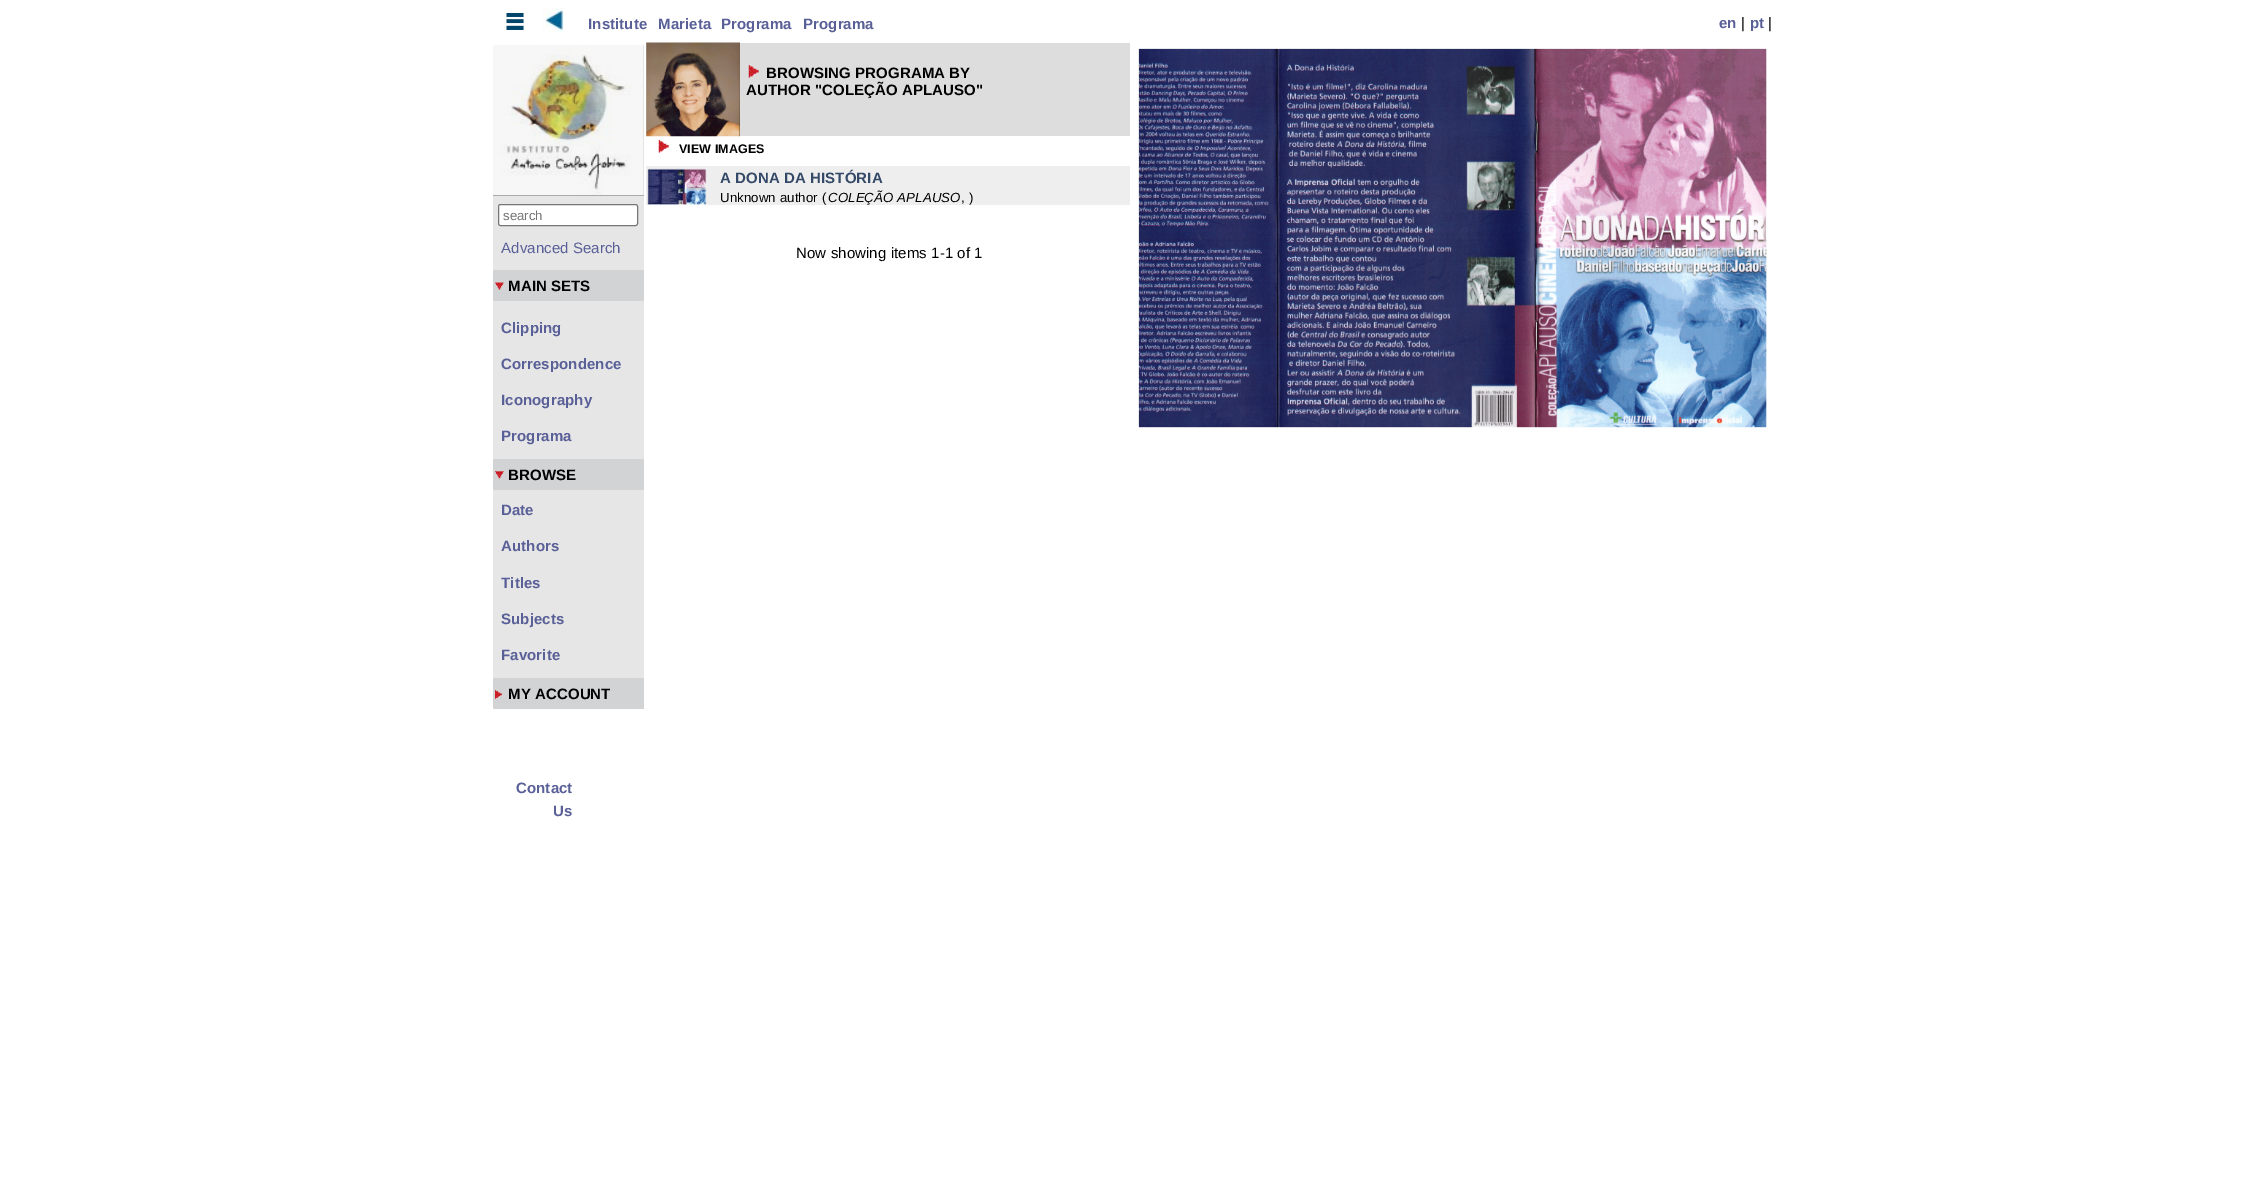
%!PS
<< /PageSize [2264 1188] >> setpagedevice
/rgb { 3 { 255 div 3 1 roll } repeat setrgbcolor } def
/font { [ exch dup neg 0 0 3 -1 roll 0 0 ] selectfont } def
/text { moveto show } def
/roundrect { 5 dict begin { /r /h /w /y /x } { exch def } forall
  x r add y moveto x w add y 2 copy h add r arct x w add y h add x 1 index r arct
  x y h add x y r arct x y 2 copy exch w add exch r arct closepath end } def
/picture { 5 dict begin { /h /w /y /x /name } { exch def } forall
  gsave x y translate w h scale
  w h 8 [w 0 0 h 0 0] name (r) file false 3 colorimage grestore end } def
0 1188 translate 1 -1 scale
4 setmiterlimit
255 255 255 rgb
0 0 2264 1188 rectfill
(img_01.rgb) 506 12 18 18 picture
(img_02.rgb) 542 7 22 26 picture
221 221 221 rgb
646 43 484 93 rectfill
(img_03.rgb) 646 42 94 95 picture
(img_04.rgb) 1138 48 629 380 picture
(img_05.rgb) 748 65 11 13 picture
(img_06.rgb) 658 140 11 13 picture
238 238 238 rgb
646 166 484 39 rectfill
(img_07.rgb) 647 168 60 37 picture
230 230 230 rgb
493 196 151 482 rectfill
170 170 170 rgb
493 45 151 151 rectfill
(img_08.rgb) 493 45 151 150 picture
255 255 255 rgb
498.5 204.5 139 21 2 roundrect gsave fill grestore
118 118 118 rgb
stroke
209 211 212 rgb
493 270 151 31 rectfill
(img_09.rgb) 495 282 9 8 picture
493 459 151 31 rectfill
(img_10.rgb) 495 471 9 8 picture
493 678 151 31 rectfill
(img_11.rgb) 495 690 7 9 picture
/LiberationSans-Bold 15 font
89 95 151 rgb
588 29 moveto 0.1 0 (Institute) ashow
658 29 moveto 0.1 0 (Marieta) ashow
721 29 moveto 0.1 0 (Programa) ashow
803 29 moveto 0.1 0 (Programa) ashow
1719 28 moveto 0.1 0 (en) ashow
/LiberationSans-Regular 15 font
0 0 0 rgb
1741 28 moveto 0.1 0 (|) ashow
/LiberationSans-Bold 15 font
89 95 151 rgb
1750 28 moveto 0.1 0 (pt) ashow
/LiberationSans-Regular 15 font
0 0 0 rgb
1768 28 moveto 0.1 0 (|) ashow
/LiberationSans-Bold 15 font
766 78 moveto 0.1 0 (BROWSING PROGRAMA BY) ashow
746 95 moveto 0.1 0 (AUTHOR "COLEÇÃO APLAUSO") ashow
/LiberationSans-Bold 12.5 font
679 153 moveto 0.1 0 (VIEW IMAGES) ashow
/LiberationSans-Bold 15 font
52 73 103 rgb
720 183 moveto 0.1 0 (A DONA DA HISTÓRIA) ashow
/LiberationSans-Regular 13.25 font
0 0 0 rgb
720 202 moveto 0.1 0 (Unknown author \() ashow
/LiberationSans-Italic 13.25 font
828 202 moveto 0.1 0 (COLEÇÃO APLAUSO) ashow
/LiberationSans-Regular 13.25 font
961 202 moveto 0.1 0 (, \)) ashow
/LiberationSans-Regular 15 font
796 258 moveto 0.1 0 (Now showing items 1-1 of 1) ashow
/LiberationSans-Regular 13.25 font
117 117 117 rgb
(search) 503 220 text
/LiberationSans-Regular 15 font
89 95 151 rgb
501 253 moveto 0.1 0 (Advanced Search) ashow
/LiberationSans-Bold 15 font
0 0 0 rgb
508 291 moveto 0.1 0 (MAIN SETS) ashow
89 95 151 rgb
501 333 moveto 0.1 0 (Clipping) ashow
501 369 moveto 0.1 0 (Correspondence) ashow
501 405 moveto 0.1 0 (Iconography) ashow
501 441 moveto 0.1 0 (Programa) ashow
0 0 0 rgb
508 480 moveto 0.1 0 (BROWSE) ashow
89 95 151 rgb
501 515 moveto 0.1 0 (Date) ashow
501 551 moveto 0.1 0 (Authors) ashow
501 588 moveto 0.1 0 (Titles) ashow
501 624 moveto 0.1 0 (Subjects) ashow
501 660 moveto 0.1 0 (Favorite) ashow
0 0 0 rgb
508 699 moveto 0.1 0 (MY ACCOUNT) ashow
89 95 151 rgb
516 793 moveto 0.1 0 (Contact) ashow
553 816 moveto 0.1 0 (Us) ashow
showpage
